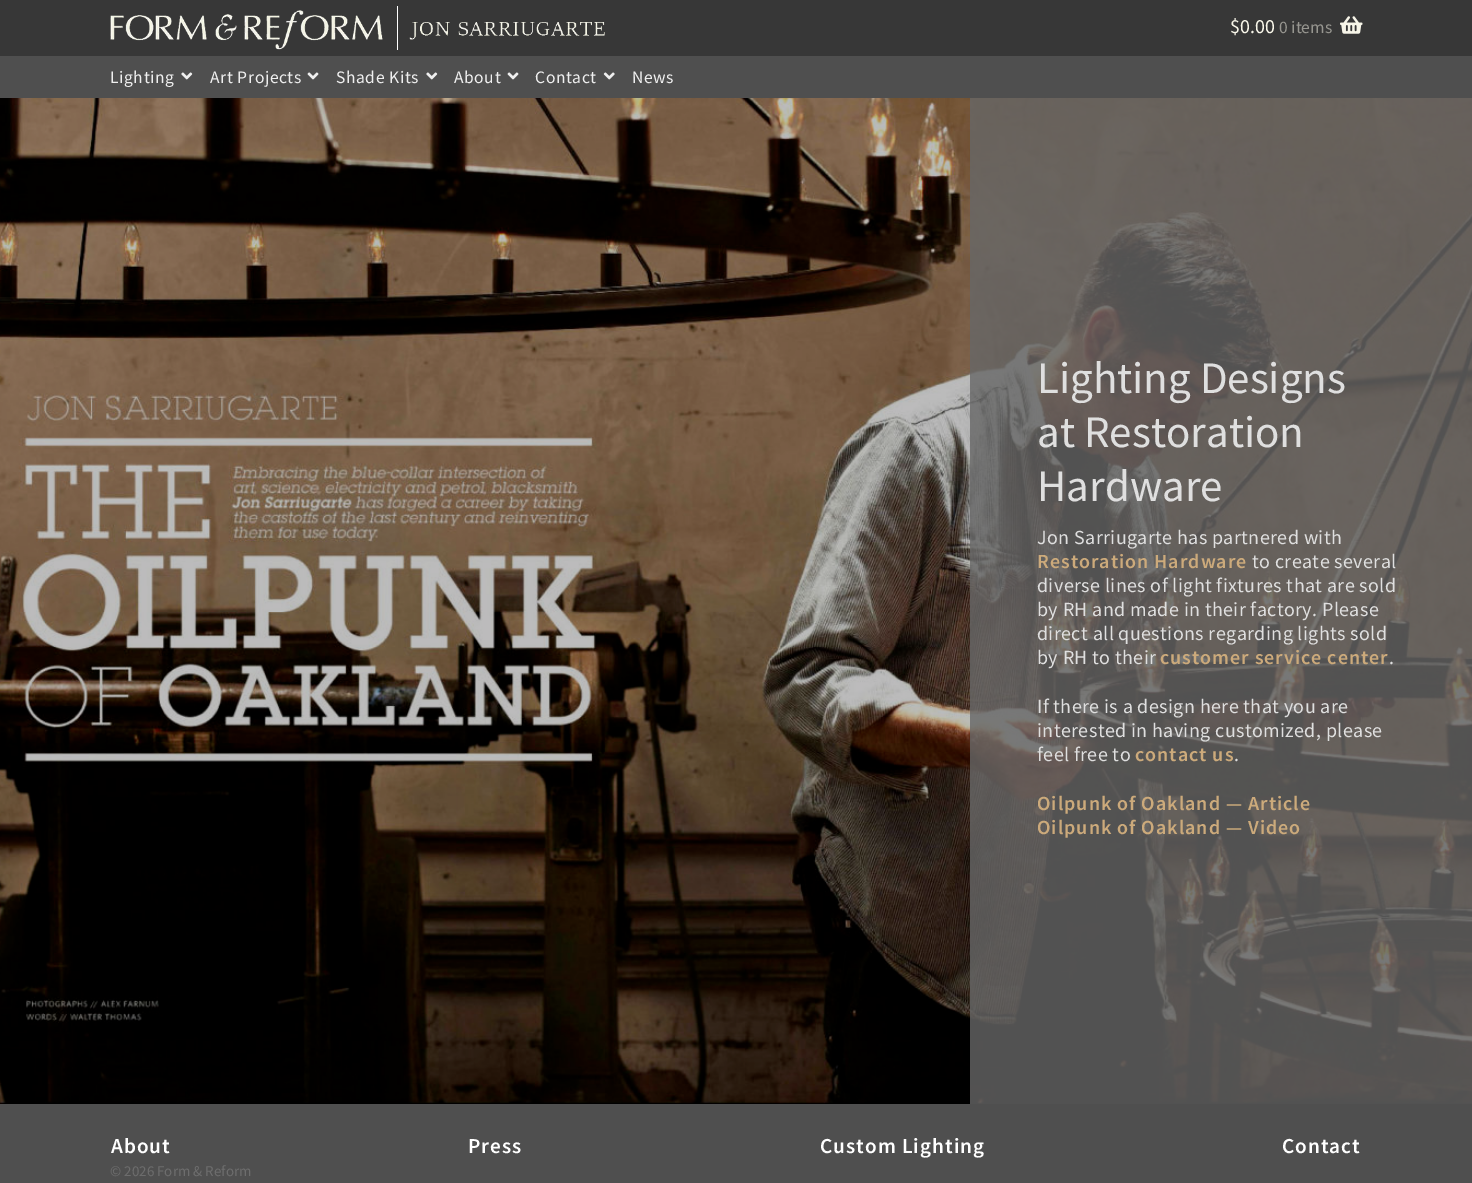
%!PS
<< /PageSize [1472 1183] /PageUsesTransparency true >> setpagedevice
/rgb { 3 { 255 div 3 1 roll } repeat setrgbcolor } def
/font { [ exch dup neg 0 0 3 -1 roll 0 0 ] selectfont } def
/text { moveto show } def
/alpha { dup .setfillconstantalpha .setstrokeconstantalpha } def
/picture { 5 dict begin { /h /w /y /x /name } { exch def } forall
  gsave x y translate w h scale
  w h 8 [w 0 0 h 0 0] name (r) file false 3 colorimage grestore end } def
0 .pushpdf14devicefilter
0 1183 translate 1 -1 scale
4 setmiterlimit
0 0 0 rgb
0 0 1472 1183 rectfill
55 55 55 rgb
0 0 1472 56 rectfill
(img_01.rgb) 110 6 495 44 picture
(img_02.rgb) 1340 16 23 18 picture
79 79 79 rgb
0 56 1472 42 rectfill
(img_03.rgb) 181 72 12 8 picture
(img_04.rgb) 307 72 12 8 picture
(img_03.rgb) 426 72 12 8 picture
(img_04.rgb) 507 72 12 8 picture
(img_05.rgb) 603 72 12 8 picture
(img_06.rgb) 0 98 1472 1006 picture
0.8 alpha
103 103 103 rgb
970 98 502 1006 rectfill
1 alpha
79 79 79 rgb
0 1104 1472 79 rectfill
/SourceSansPro-Regular 20 font
247 245 232 rgb
($0.00) 1230 33 text
/SourceSansPro-Regular 17.5 font
151 150 144 rgb
(0 items) 1279 33 text
239 239 239 rgb
110 83 moveto 0.6 0 (Lighting) ashow
210 83 moveto 0.6 0 (Art Projects) ashow
336 83 moveto 0.6 0 (Shade Kits) ashow
454 83 moveto 0.6 0 (About) ashow
535 83 moveto 0.6 0 (Contact) ashow
632 83 moveto 0.6 0 (News) ashow
/SourceSansPro-Regular 45 font
223 223 223 rgb
(Lighting Designs) 1037 393 text
(at Restoration) 1037 447 text
(Hardware) 1037 501 text
/SourceSansPro-Regular 20 font
1037 544 moveto 0.4 0 (Jon Sarriugarte has partnered with) ashow
/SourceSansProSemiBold-SemiBold 20 font
204 170 123 rgb
1037 568 moveto 1 0 (Restoration Hardware) ashow
/SourceSansPro-Regular 20 font
223 223 223 rgb
1252 568 moveto 0.4 0 (to create several) ashow
1037 592 moveto 0.4 0 (diverse lines of light fixtures that are sold) ashow
1037 616 moveto 0.4 0 (by RH and made in their factory. Please) ashow
1037 640 moveto 0.4 0 (direct all questions regarding lights sold) ashow
1037 664 moveto 0.4 0 (by RH to their) ashow
/SourceSansProSemiBold-SemiBold 20 font
204 170 123 rgb
1160 664 moveto 1 0 (customer service center) ashow
/SourceSansPro-Regular 20 font
223 223 223 rgb
1389 664 moveto 0.4 0 (.) ashow
1037 713 moveto 0.4 0 (If there is a design here that you are) ashow
1037 737 moveto 0.4 0 (interested in having customized, please) ashow
1037 761 moveto 0.4 0 (feel free to) ashow
/SourceSansProSemiBold-SemiBold 20 font
204 170 123 rgb
1135 761 moveto 1 0 (contact us) ashow
/SourceSansPro-Regular 20 font
223 223 223 rgb
1234 761 moveto 0.4 0 (.) ashow
/SourceSansProSemiBold-SemiBold 20 font
204 170 123 rgb
1037 810 moveto 1 0 (Oilpunk of Oakland — Article) ashow
1037 834 moveto 1 0 (Oilpunk of Oakland — Video) ashow
/SourceSansProSemiBold-SemiBold 21.25 font
255 255 255 rgb
111 1153 moveto 1 0 (About) ashow
468 1153 moveto 1 0 (Press) ashow
820 1153 moveto 1 0 (Custom Lighting) ashow
1282 1153 moveto 1 0 (Contact) ashow
/SourceSansPro-Regular 15 font
109 109 109 rgb
(© 2026 Form & Reform) 110 1176 text
.poppdf14devicefilter showpage
